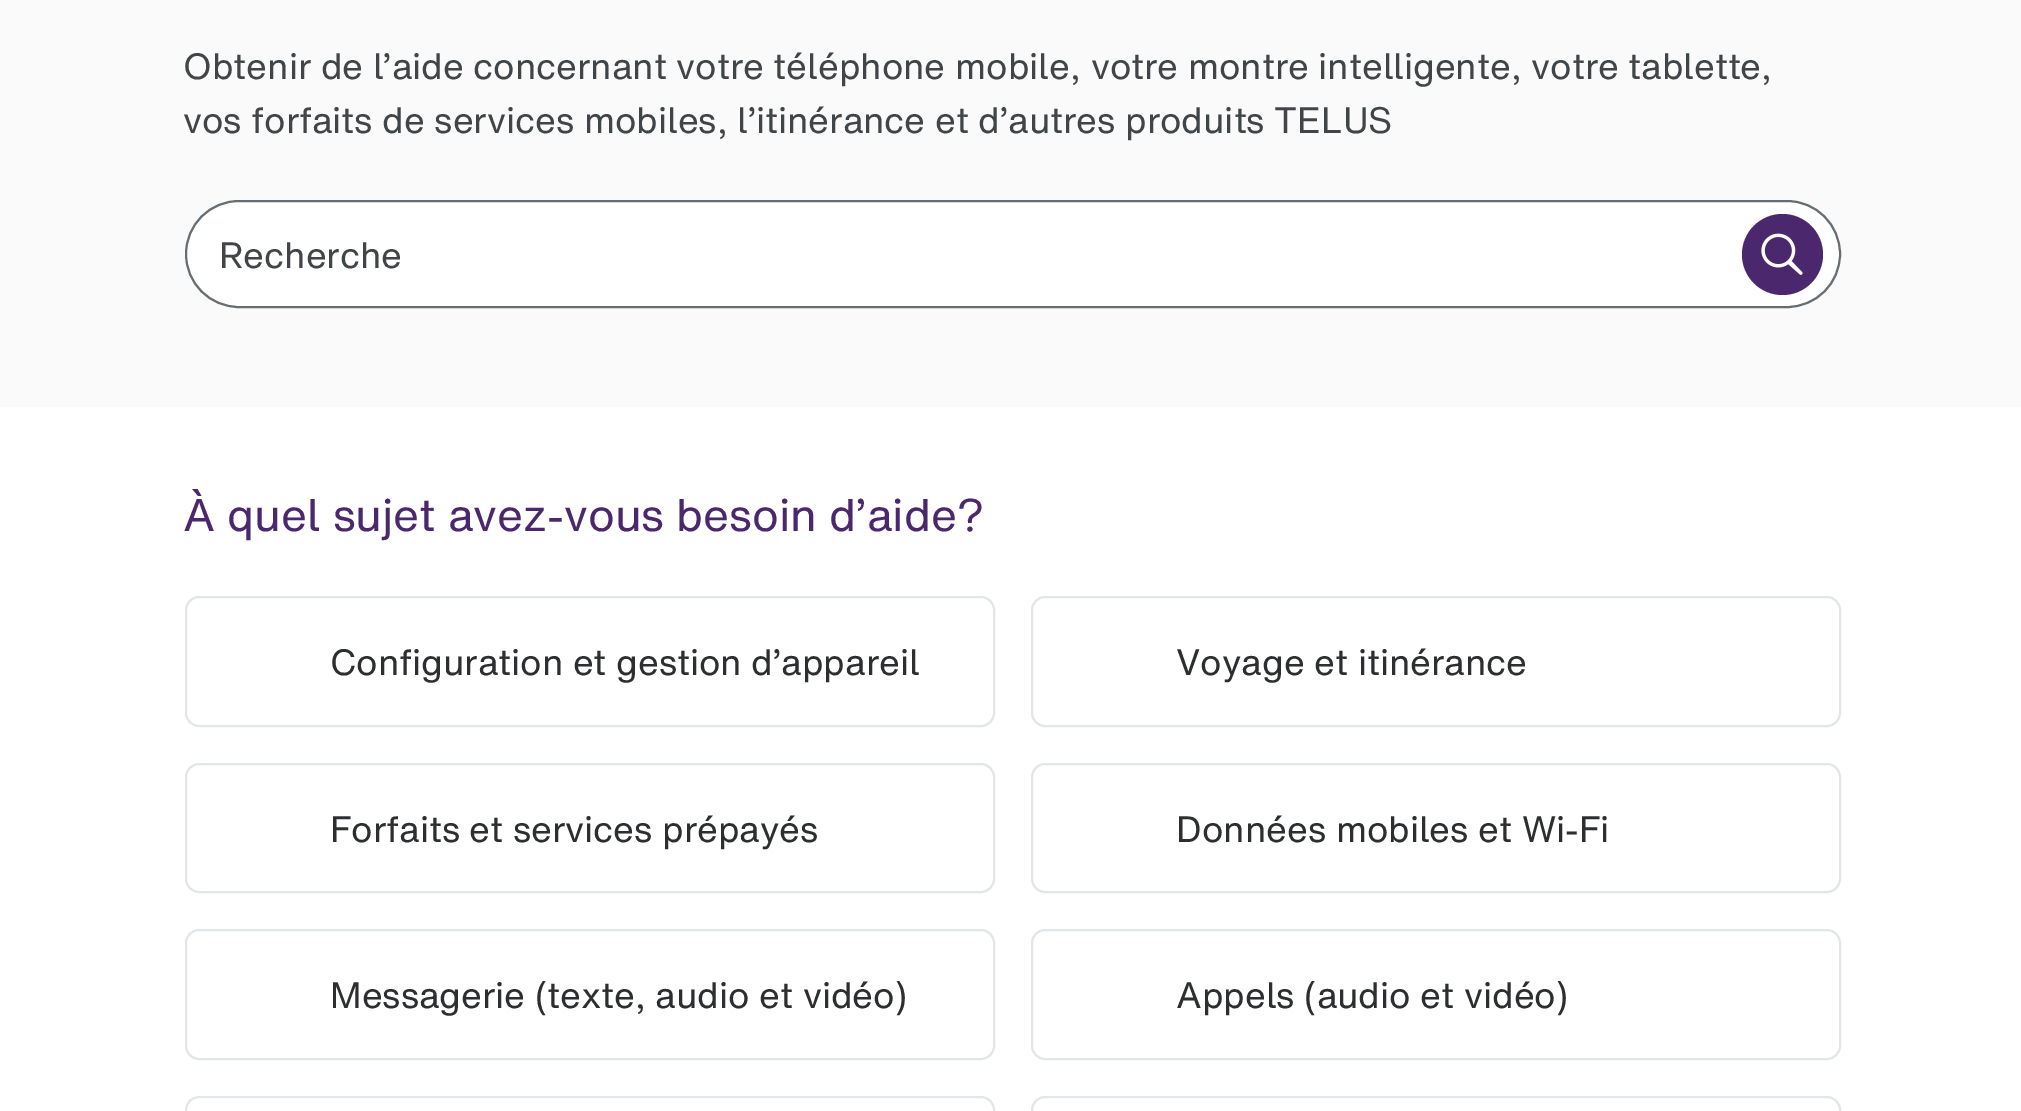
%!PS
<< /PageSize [2021 1111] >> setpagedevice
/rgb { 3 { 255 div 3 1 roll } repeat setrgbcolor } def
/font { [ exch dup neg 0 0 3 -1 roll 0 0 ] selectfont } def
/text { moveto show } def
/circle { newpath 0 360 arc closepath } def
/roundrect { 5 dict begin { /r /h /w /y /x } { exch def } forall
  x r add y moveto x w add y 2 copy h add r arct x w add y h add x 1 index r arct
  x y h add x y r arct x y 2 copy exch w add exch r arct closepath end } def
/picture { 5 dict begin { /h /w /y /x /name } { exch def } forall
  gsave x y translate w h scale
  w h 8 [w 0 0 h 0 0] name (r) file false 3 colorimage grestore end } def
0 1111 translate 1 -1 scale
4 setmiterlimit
255 255 255 rgb
0 0 2021 1111 rectfill
250 250 250 rgb
0 0 2021 407 rectfill
255 255 255 rgb
186 201 1654 106 53 roundrect gsave fill grestore
103 110 115 rgb
2 setlinewidth
stroke
75 40 109 rgb
1782.5 254.5 40.5 circle fill
(img_01.rgb) 1761 233 42 42 picture
227 230 232 rgb
186 597 808 129 13 roundrect stroke
1032 597 808 129 13 roundrect stroke
186 764 808 128 13 roundrect stroke
1032 764 808 128 13 roundrect stroke
186 930 808 129 13 roundrect stroke
1032 930 808 129 13 roundrect stroke
186 1097 808 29 13 roundrect stroke
1032 1097 808 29 13 roundrect stroke
/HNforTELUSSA-Regular 36 font
65 69 71 rgb
(Obtenir de l’aide concernant votre téléphone mobile, votre montre intelligente, votre tablette,) 183 79 text
(vos forfaits de services mobiles, l’itinérance et d’autres produits TELUS) 183 133 text
(Recherche) 219 268 text
/HNforTELUSSA-Regular 45 font
75 40 109 rgb
(À quel sujet avez-vous besoin d’aide?) 183 531 text
/HNforTELUSSA-Regular 36 font
44 46 48 rgb
(Configuration et gestion d’appareil) 330 675 text
(Voyage et itinérance) 1176 675 text
(Forfaits et services prépayés) 330 842 text
(Données mobiles et Wi-Fi) 1176 842 text
(Messagerie \(texte, audio et vidéo\)) 330 1008 text
(Appels \(audio et vidéo\)) 1176 1008 text
showpage
